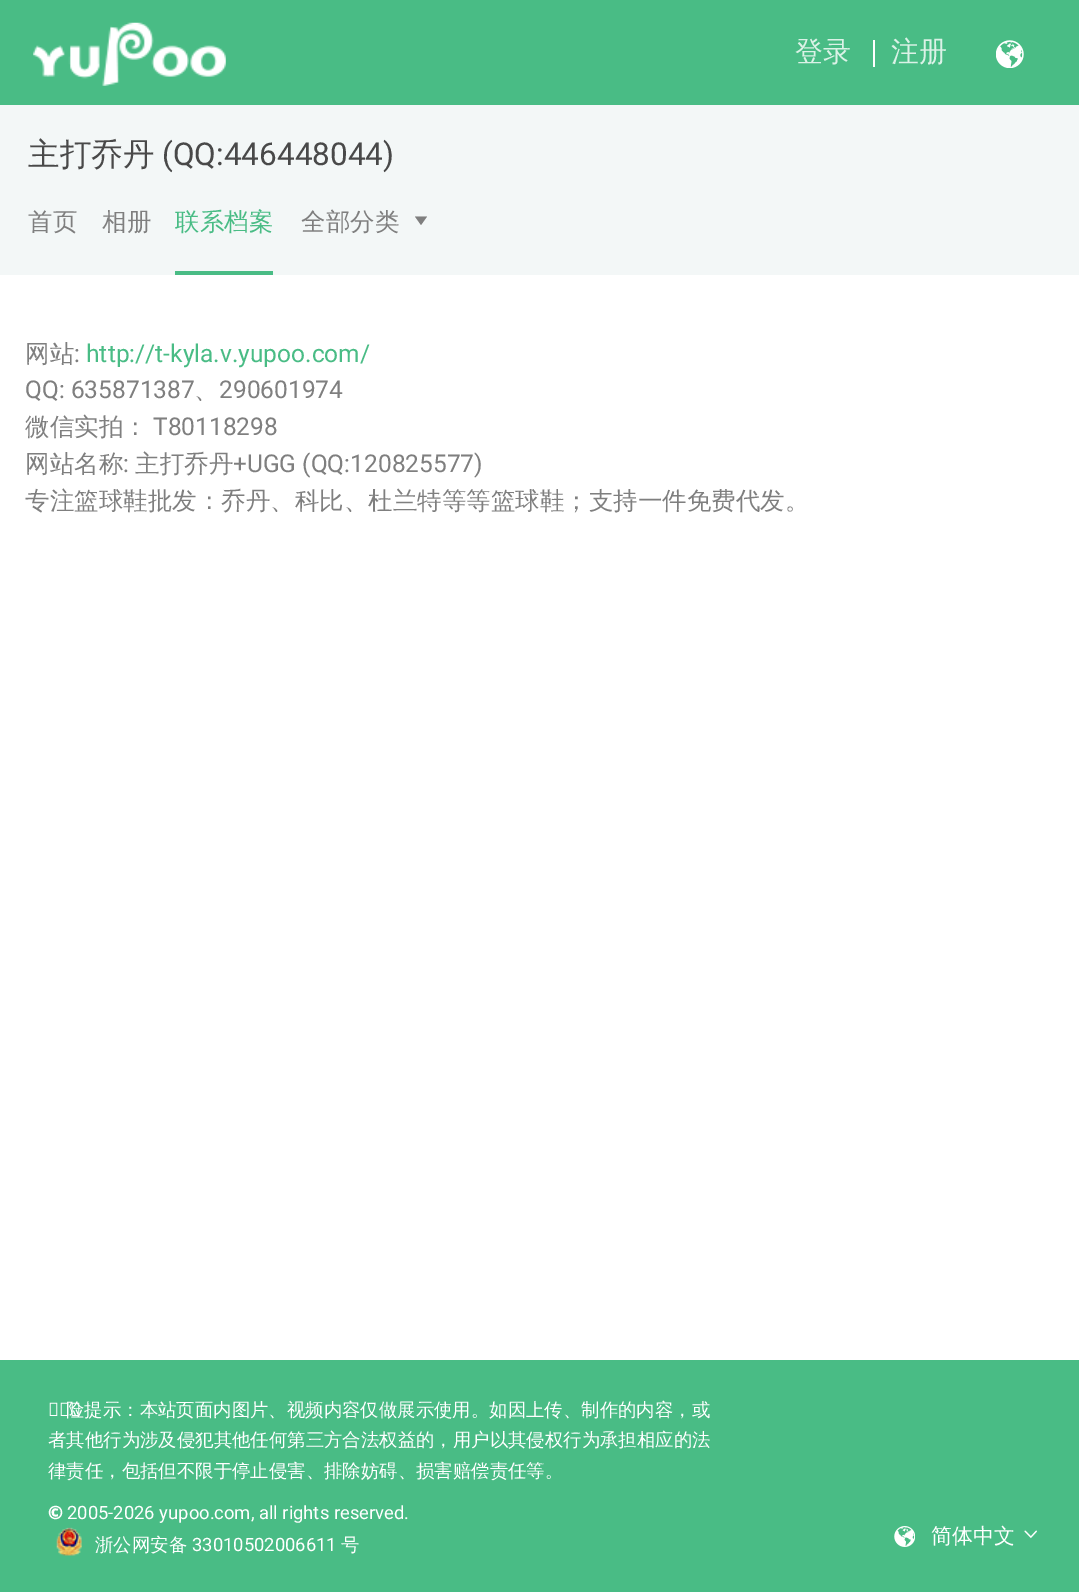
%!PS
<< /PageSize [1079 1592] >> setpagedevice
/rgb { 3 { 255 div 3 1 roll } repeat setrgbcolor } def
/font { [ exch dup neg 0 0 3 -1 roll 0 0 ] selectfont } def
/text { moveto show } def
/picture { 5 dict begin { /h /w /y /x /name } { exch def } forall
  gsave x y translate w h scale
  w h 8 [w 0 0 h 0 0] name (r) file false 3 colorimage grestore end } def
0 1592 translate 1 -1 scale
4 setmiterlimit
255 255 255 rgb
0 0 1079 1592 rectfill
73 188 133 rgb
0 0 1079 105 rectfill
(img_01.rgb) 33 22 193 64 picture
255 255 255 rgb
873 40 2 27 rectfill
(img_02.rgb) 996 40 28 28 picture
243 247 247 rgb
0 105 1079 170 rectfill
73 188 133 rgb
175 271 98 4 rectfill
127 127 127 rgb
421 225 moveto -6 -8.5 rlineto 12 0 rlineto closepath fill
73 188 133 rgb
0 1360 1079 232 rectfill
(img_03.rgb) 56 1527 26 29 picture
(img_04.rgb) 894 1526 21 21 picture
(img_05.rgb) 1024 1530 13 9 picture
/WenQuanYiZenHei-Medium 28 font
219 242 231 rgb
(登录) 795 61 text
(注册) 891 61 text
/WenQuanYiZenHei-Medium 31.5 font
73 73 73 rgb
(主打乔丹) 28 165 text
/Roboto-Regular 31.5 font
(\(QQ:446448044\)) 162 165 text
/WenQuanYiZenHei-Medium 24.5 font
127 127 127 rgb
(首页) 28 230 text
(相册) 102 230 text
73 188 133 rgb
(联系档案) 175 230 text
127 127 127 rgb
(全部分类) 301 230 text
(网站) 25 362 text
/Roboto-Regular 24.5 font
(:) 74 362 text
73 188 133 rgb
(http://t-kyla.v.yupoo.com/) 86 362 text
127 127 127 rgb
(QQ: 635871387) 25 398 text
/WenQuanYiZenHei-Medium 24.5 font
(、) 194 398 text
/Roboto-Regular 24.5 font
(290601974) 219 398 text
/WenQuanYiZenHei-Medium 24.5 font
(微信实拍：) 25 435 text
/Roboto-Regular 24.5 font
(T80118298) 153 435 text
/WenQuanYiZenHei-Medium 24.5 font
(网站名称) 25 472 text
/Roboto-Regular 24.5 font
(:) 123 472 text
/WenQuanYiZenHei-Medium 24.5 font
(主打乔丹) 135 472 text
/Roboto-Regular 24.5 font
(+UGG \(QQ:120825577\)) 233 472 text
/WenQuanYiZenHei-Medium 24.5 font
(专注篮球鞋批发：乔丹、科比、杜兰特等等篮球鞋；支持一件免费代发。) 25 509 text
/NotoSans-Regular 18.4 font
255 255 255 rgb
(风) 48 1416 text
/WenQuanYiZenHei-Medium 18.4 font
(险提示：本站页面内图片、视频内容仅做展示使用。如因上传、制作的内容，或) 66 1416 text
(者其他行为涉及侵犯其他任何第三方合法权益的，用户以其侵权行为承担相应的法) 48 1446 text
(律责任，包括但不限于停止侵害、排除妨碍、损害赔偿责任等。) 48 1477 text
/NotoSans-Black 18.4 font
(©) 48 1519 text
/Roboto-Regular 18.4 font
(2005-2026 yupoo.com, all rights reserved.) 67 1519 text
/WenQuanYiZenHei-Medium 18.4 font
(浙公网安备) 95 1551 text
/Roboto-Regular 18.4 font
(33010502006611) 192 1551 text
/WenQuanYiZenHei-Medium 18.4 font
(号) 341 1551 text
/WenQuanYiZenHei-Medium 21 font
(简体中文) 931 1543 text
showpage
